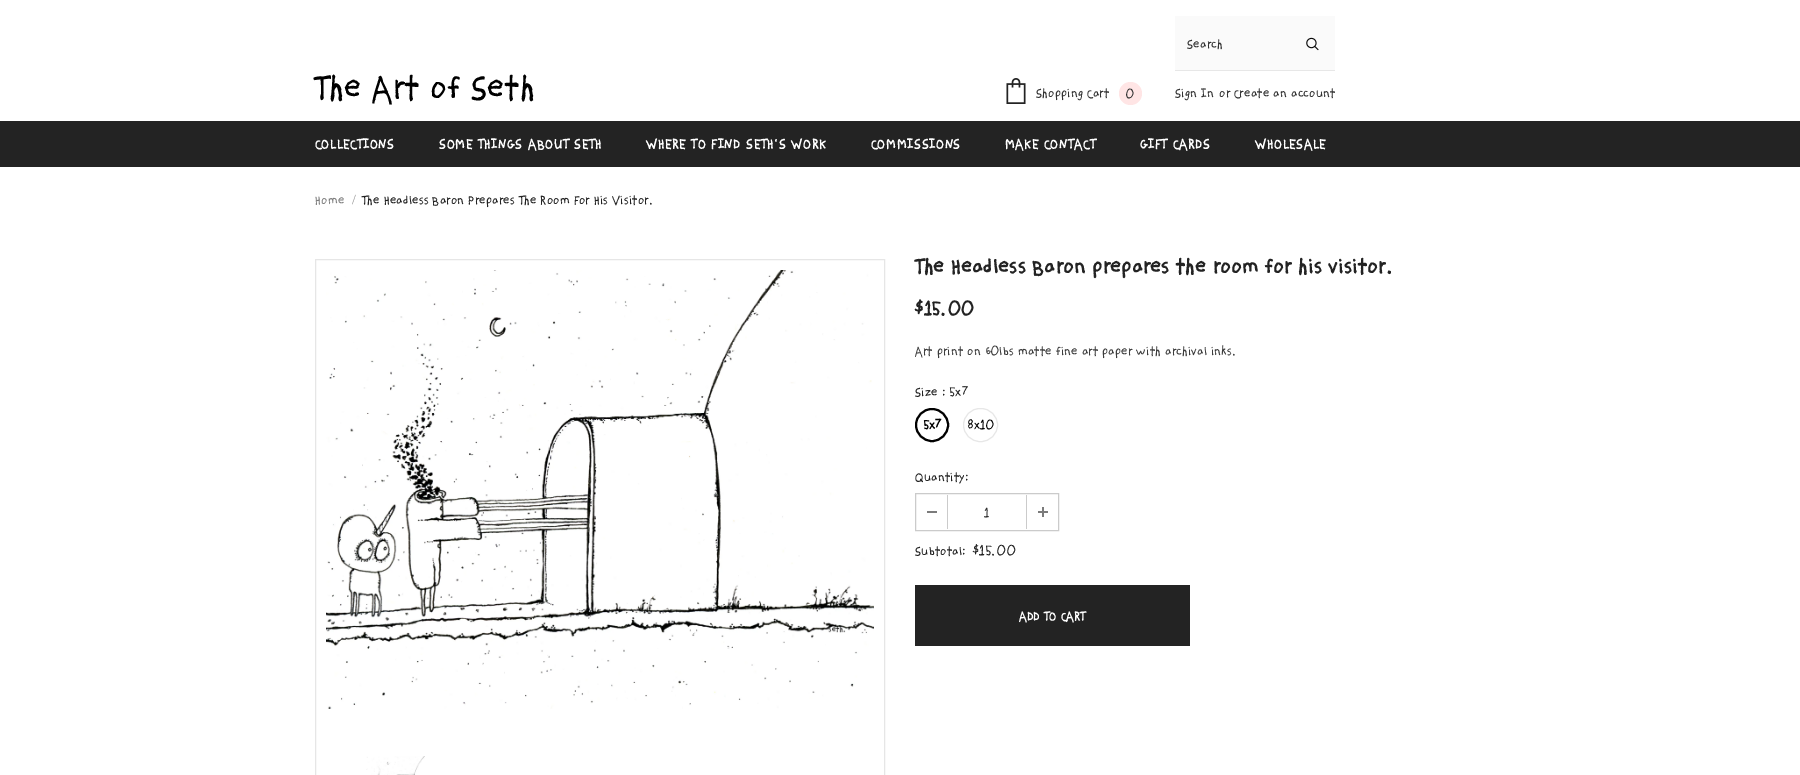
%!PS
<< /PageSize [1800 775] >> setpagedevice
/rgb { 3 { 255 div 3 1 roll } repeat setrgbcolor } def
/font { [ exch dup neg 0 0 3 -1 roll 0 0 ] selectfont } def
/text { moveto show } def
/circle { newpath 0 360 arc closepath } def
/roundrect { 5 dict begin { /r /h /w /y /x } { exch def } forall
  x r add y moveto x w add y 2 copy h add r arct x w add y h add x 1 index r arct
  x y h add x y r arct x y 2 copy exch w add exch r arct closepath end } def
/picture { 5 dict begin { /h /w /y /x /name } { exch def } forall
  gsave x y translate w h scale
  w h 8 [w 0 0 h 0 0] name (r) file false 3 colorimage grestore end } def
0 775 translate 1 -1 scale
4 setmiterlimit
255 255 255 rgb
0 0 1800 775 rectfill
250 250 250 rgb
1175 16 160 54 rectfill
231 231 231 rgb
1175 70 160 1 rectfill
(img_01.rgb) 1306 37 13 14 picture
(img_02.rgb) 1006 78 20 26 picture
255 229 229 rgb
1130.5 93.5 11.5 circle fill
35 35 35 rgb
0 121 1800 46 rectfill
230 230 230 rgb
315.5 259.5 569 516 rectstroke
(img_03.rgb) 326 270 548 439 picture
(img_04.rgb) 366 756 59 19 picture
231 231 231 rgb
932 425 16.5 circle stroke
0 0 0 rgb
2 setlinewidth
932 425 16 circle stroke
231 231 231 rgb
1 setlinewidth
963.5 408.5 34 33 16.5 roundrect stroke
203 203 203 rgb
915.5 493.5 143 37 rectstroke
947 495 1 34 rectfill
123 123 123 rgb
927 511 10 2 rectfill
203 203 203 rgb
1026 495 1 34 rectfill
123 123 123 rgb
1038 511 10 2 rectfill
1042 507 2 10 rectfill
35 35 35 rgb
915 585 275 61 rectfill
/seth-Regular 12 font
50 50 50 rgb
(Search) 1187 48 text
/seth-Regular 32 font
0 0 0 rgb
(The Art of Seth) 315 98 text
/seth-Regular 12 font
50 50 50 rgb
(Shopping Cart) 1036 97 text
(0) 1125 98 text
(Sign In) 1175 97 text
(or Create an account) 1219 97 text
/seth-Bold 13 font
255 255 255 rgb
315 148 moveto 0.65 0 (COLLECTIONS) ashow
439 148 moveto 0.65 0 (SOME THINGS ABOUT SETH) ashow
646 148 moveto 0.65 0 (WHERE TO FIND SETH'S WORK) ashow
871 148 moveto 0.65 0 (COMMISSIONS) ashow
1005 148 moveto 0.65 0 (MAKE CONTACT) ashow
1140 148 moveto 0.65 0 (GIFT CARDS) ashow
1255 148 moveto 0.65 0 (WHOLESALE) ashow
/seth-Regular 12 font
128 128 128 rgb
(Home) 315 204 text
/LiberationSerif-Regular 14 font
153 153 153 rgb
(/) 352 204 text
/seth-Regular 12 font
35 35 35 rgb
(The Headless Baron Prepares The Room For His Visitor.) 362 204 text
/seth-Bold 20 font
(The Headless Baron prepares the room for his visitor.) 915 273 text
/seth-Bold 18 font
($15.00) 915 315 text
/seth-Regular 12 font
60 60 60 rgb
(Art print on 60lbs matte fine art paper with archival inks.) 915 355 text
35 35 35 rgb
(Size : 5x7) 915 396 text
/seth-Bold 12 font
0 0 0 rgb
(5x7) 923 429 text
/seth-Regular 12 font
(8x10) 967 429 text
35 35 35 rgb
(Quantity:) 915 481 text
50 50 50 rgb
(1) 984 517 text
35 35 35 rgb
(Subtotal:) 915 555 text
/seth-Regular 13 font
($15.00) 973 555 text
/seth-Bold 12 font
255 255 255 rgb
(ADD TO CART) 1019 620 text
showpage
